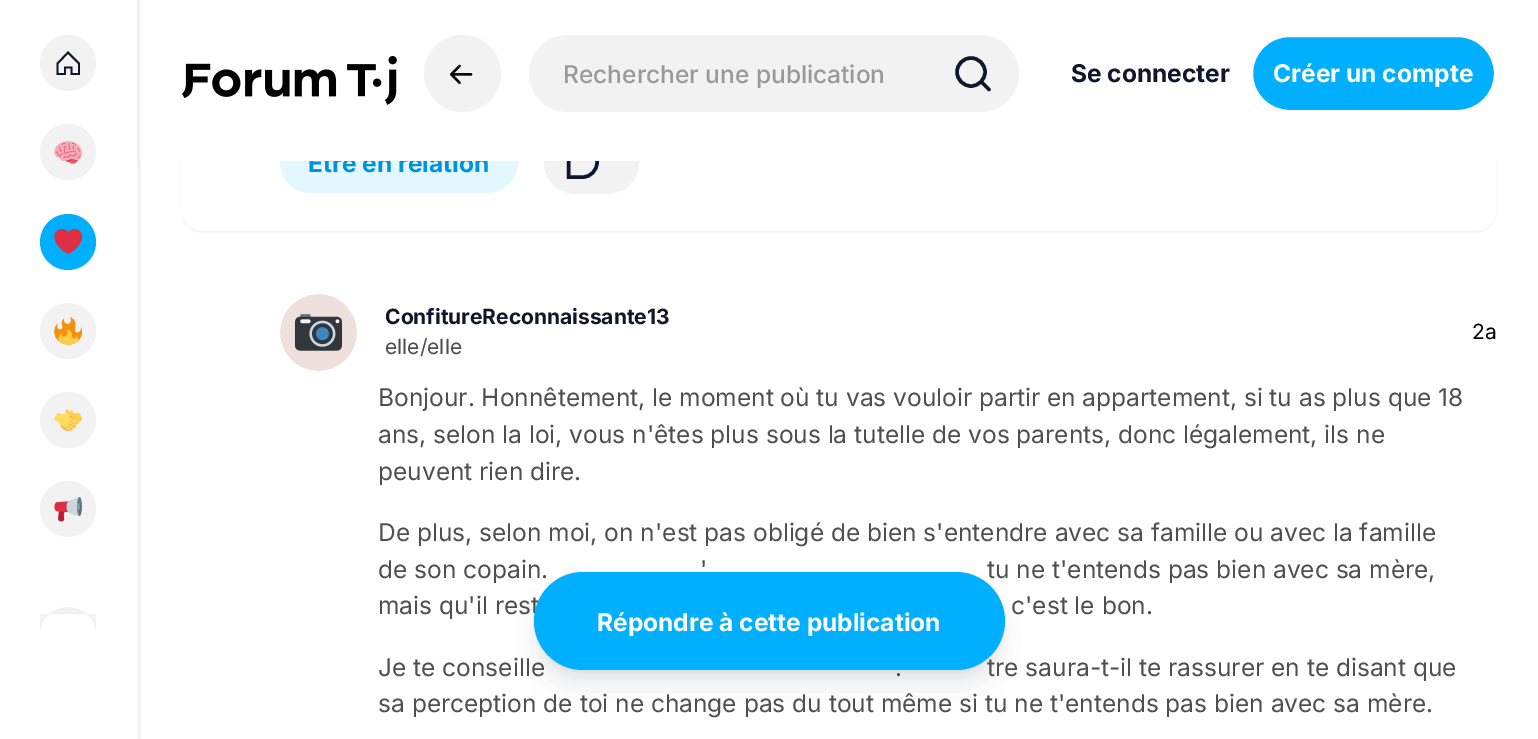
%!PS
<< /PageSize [1538 739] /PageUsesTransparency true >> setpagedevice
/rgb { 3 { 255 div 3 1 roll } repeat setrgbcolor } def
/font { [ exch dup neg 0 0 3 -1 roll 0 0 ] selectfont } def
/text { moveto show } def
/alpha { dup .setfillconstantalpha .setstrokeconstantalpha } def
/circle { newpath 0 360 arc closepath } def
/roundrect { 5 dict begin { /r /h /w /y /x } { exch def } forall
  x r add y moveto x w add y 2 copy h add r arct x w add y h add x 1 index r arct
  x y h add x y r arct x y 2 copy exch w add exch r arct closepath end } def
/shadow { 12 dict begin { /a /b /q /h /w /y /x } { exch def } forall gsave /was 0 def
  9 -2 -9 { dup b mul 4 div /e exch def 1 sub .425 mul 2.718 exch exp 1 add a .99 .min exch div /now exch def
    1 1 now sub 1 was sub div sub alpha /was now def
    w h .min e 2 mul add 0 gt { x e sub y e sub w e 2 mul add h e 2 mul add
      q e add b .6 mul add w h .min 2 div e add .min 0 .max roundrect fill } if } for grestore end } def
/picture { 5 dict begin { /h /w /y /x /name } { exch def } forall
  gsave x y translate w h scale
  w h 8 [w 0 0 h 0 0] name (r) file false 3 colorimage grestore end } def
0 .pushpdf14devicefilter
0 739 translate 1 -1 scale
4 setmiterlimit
255 255 255 rgb
0 0 1538 739 rectfill
242 242 242 rgb
137 0 4 739 rectfill
68 63 28 circle fill
15 23 42 rgb
1.8 setlinewidth
79 63.5 moveto 0 10.5 rlineto -7.5 0 rlineto 0 -6.5 rlineto -6.5 0 rlineto 0 6.5 rlineto -7.5 0 rlineto 0 -10.5 rlineto 10.5 -11 rlineto closepath stroke
242 242 242 rgb
68 152 28 circle fill
(img_03.rgb) 54 141 28 23 picture
0 176 255 rgb
68 242 28 circle fill
(img_04.rgb) 54 228 28 26 picture
242 242 242 rgb
68 331 28 circle fill
(img_05.rgb) 54 317 28 28 picture
68 420 28 circle fill
(img_06.rgb) 54 409 28 23 picture
68 509 28 circle fill
(img_07.rgb) 54 497 28 25 picture
68 607 moveto 15.5 0 28 12.5 28 28 rcurveto 0 -21 rlineto -56 0 rlineto 0 21 rlineto 0 -15.5 12.5 -28 28 -28 rcurveto closepath fill
0 0 0 rgb
182 -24 1314 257 21 1 0.05 shadow
255 255 255 rgb
182 -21 1314 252 21 roundrect fill
227 247 255 rgb
280 131 238 62 31 roundrect fill
242 242 242 rgb
544 131 95 63 31.5 roundrect fill
15 23 42 rgb
3.5 setlinewidth
568.5 162.5 moveto 0 -7.5 6.5 -14 14.5 -14 rcurveto 7.5 0 14 6.5 14 14 rcurveto 0 8 -6.5 14.5 -14 14.5 rcurveto -14.5 0 rlineto closepath stroke
(img_08.rgb) 280 294 77 77 picture
537 583 464 91 45.5 5 0.05 shadow
539 595 460 88 44 13 0.1 shadow
534 572 471 98 49 1 0.06 shadow
/Inter-Bold 24.5 font
0 146 225 rgb
(Être en relation) 308 172 text
255 255 255 rgb
140 0 1357 161 rectfill
242 242 242 rgb
529 35 490 77 38.5 roundrect fill
15 23 42 rgb
971 72 14 circle stroke
1 setlinecap
982 82.5 moveto 7 7 rlineto stroke
/Inter-Medium 24.5 font
153 153 153 rgb
(Rechercher une publication) 563 83 text
242 242 242 rgb
462.5 73.5 38.5 circle fill
(img_02.rgb) 449 64 24 20 picture
(img_01.rgb) 182 56 215 49 picture
0 176 255 rgb
1252 36 243 75 37.5 roundrect gsave fill grestore
255 255 255 rgb
2 setlinewidth
0 setlinecap
stroke
/Inter-Bold 24.5 font
(Créer un compte) 1273 82 text
15 23 42 rgb
(Se connecter) 1071 82 text
/Inter-Bold 21 font
(ConfitureReconnaissante13) 385 324 text
/Inter-Regular 21 font
79 79 79 rgb
(elle/elle) 385 354 text
0 0 0 rgb
(2a) 1472 339 text
/Inter-Regular 24.5 font
79 79 79 rgb
(Bonjour. Honnêtement, le moment où tu vas vouloir partir en appartement, si tu as plus que 18) 378 406 text
(ans, selon la loi, vous n'êtes plus sous la tutelle de vos parents, donc légalement, ils ne) 378 443 text
(peuvent rien dire.) 378 480 text
(De plus, selon moi, on n'est pas obligé de bien s'entendre avec sa famille ou avec la famille) 378 541 text
(de son copain.) 378 578 text
(') 700 578 text
(tu ne t'entends pas bien avec sa mère,) 987 578 text
(mais qu'il rest) 378 614 text
(c'est le bon.) 1011 614 text
(Je te conseille) 378 676 text
(.) 895 676 text
(tre saura-t-il te rassurer en te disant que) 987 676 text
(sa perception de toi ne change pas du tout même si tu ne t'entends pas bien avec sa mère.) 378 712 text
0 176 255 rgb
534 572 471 98 49 roundrect fill
/Inter-Bold 24.5 font
255 255 255 rgb
(Répondre à cette publication) 597 631 text
.poppdf14devicefilter showpage
